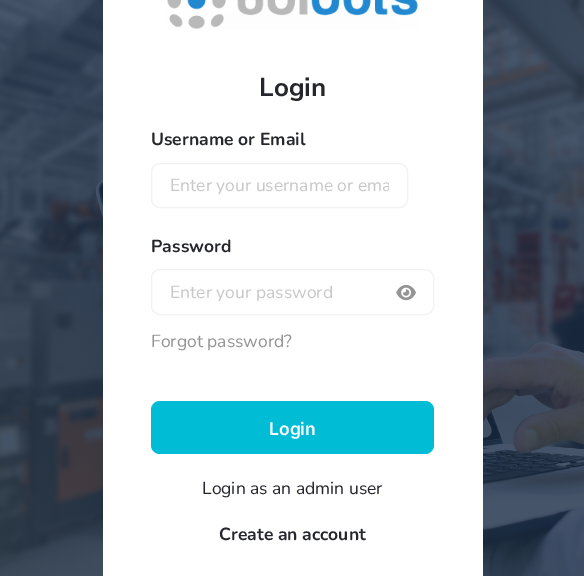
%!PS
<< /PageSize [584 576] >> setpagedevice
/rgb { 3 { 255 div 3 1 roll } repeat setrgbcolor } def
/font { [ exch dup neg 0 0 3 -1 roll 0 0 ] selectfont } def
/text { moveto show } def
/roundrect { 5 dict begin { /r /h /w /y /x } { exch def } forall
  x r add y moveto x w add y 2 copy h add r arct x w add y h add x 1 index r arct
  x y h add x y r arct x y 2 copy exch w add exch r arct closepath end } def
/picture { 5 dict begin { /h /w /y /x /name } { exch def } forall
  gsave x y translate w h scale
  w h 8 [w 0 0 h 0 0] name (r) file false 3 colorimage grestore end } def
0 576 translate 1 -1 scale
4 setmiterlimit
255 255 255 rgb
0 0 584 576 rectfill
(img_01.rgb) 0 0 584 576 picture
103 0 380 576 rectfill
(img_02.rgb) 167 0 251 30 picture
242 242 242 rgb
151.5 163.5 256 44 8.5 roundrect stroke
151.5 269.5 282 45 8.5 roundrect stroke
(img_03.rgb) 396 284 20 17 picture
0 188 212 rgb
151 401 283 53 9 roundrect fill
/NunitoSans-Bold 26 font
37 39 45 rgb
(Login) 259 96 text
/Nunito-Bold 17.5 font
(Username or Email) 151 145 text
gsave
170 174 219 24 rectclip
/Nunito-Regular 17.5 font
200 200 200 rgb
(Enter your username or ema) 170 191 text
grestore
(Password) 151 252 text
/Nunito-Regular 17.5 font
200 200 200 rgb
(Enter your password) 170 298 text
148 148 148 rgb
(Forgot password?) 151 347 text
/Inter-SemiBold 17.5 font
255 255 255 rgb
(Login) 269 435 text
/Nunito-Regular 17.5 font
37 39 45 rgb
(Login as an admin user) 202 494 text
/Nunito-Bold 17.5 font
(Create an account) 219 540 text
showpage
